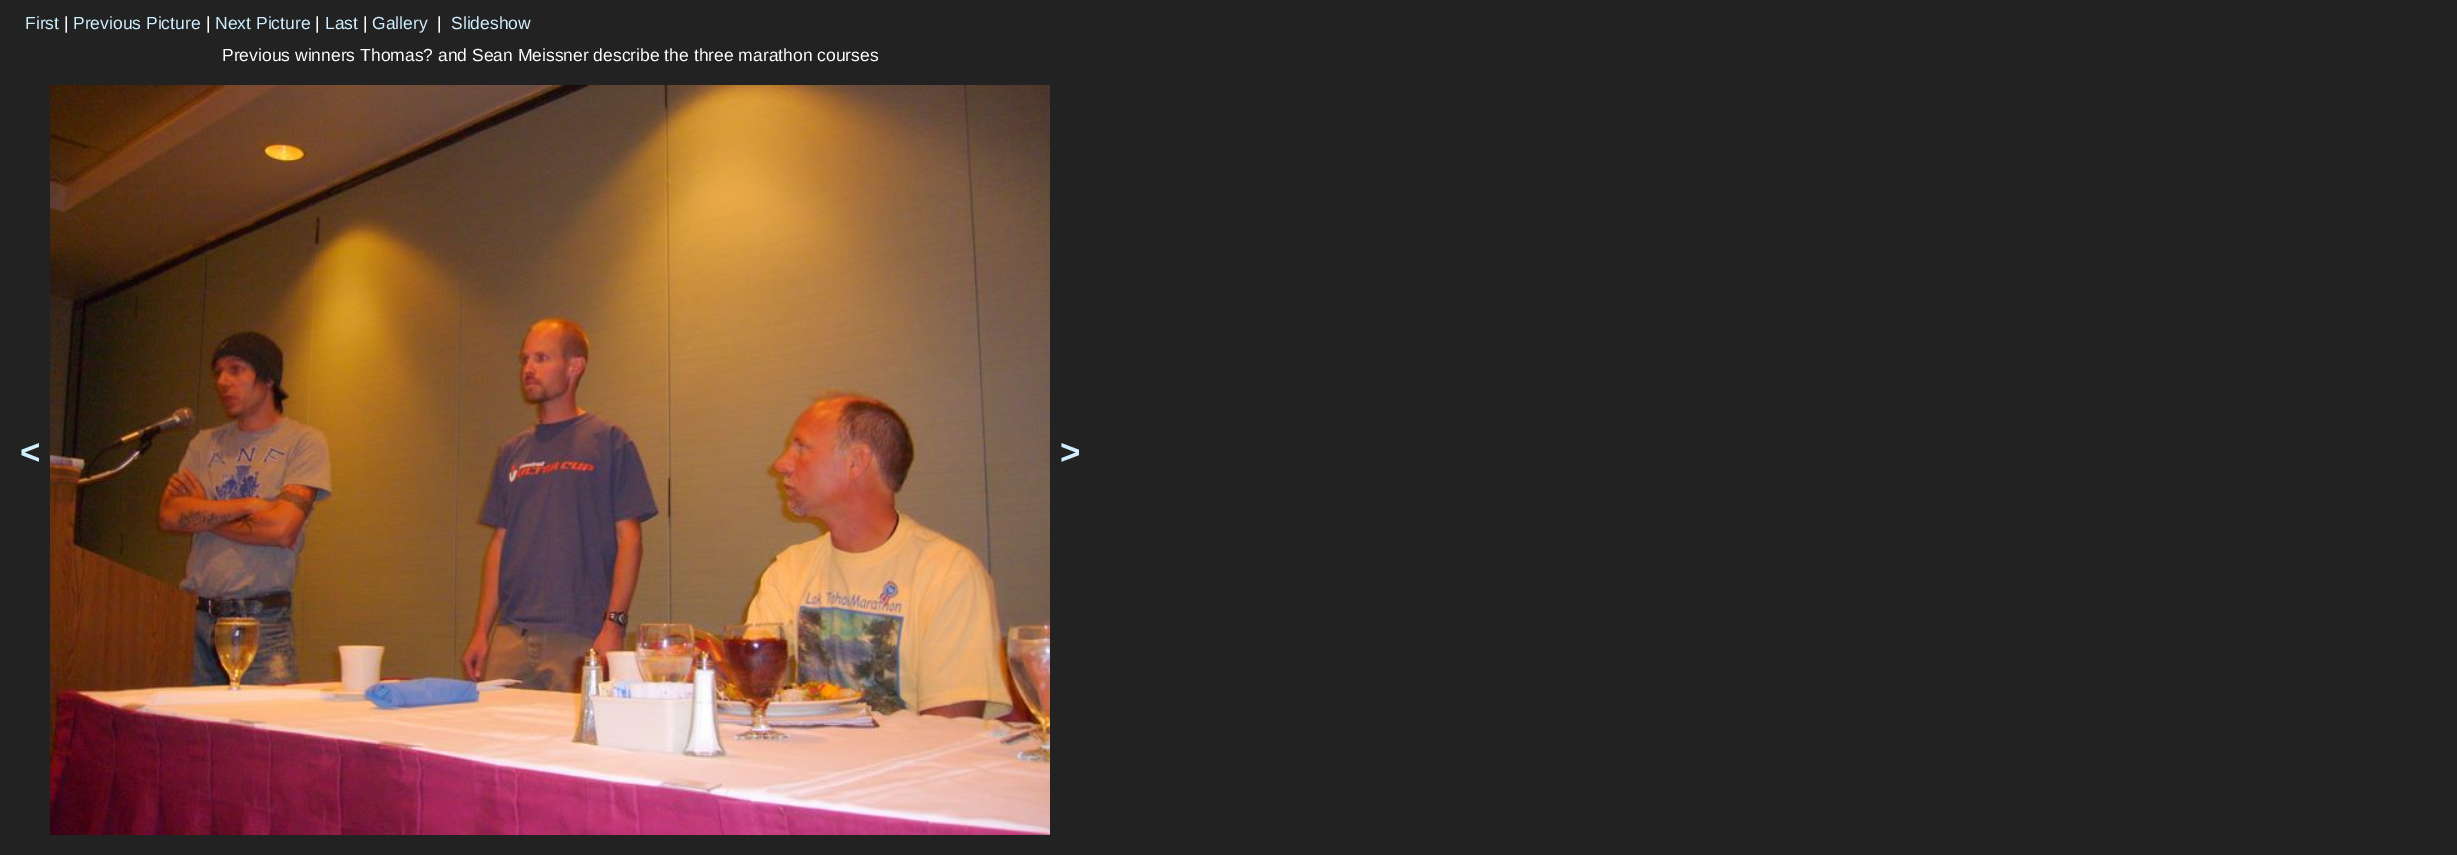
%!PS
<< /PageSize [2457 855] >> setpagedevice
/rgb { 3 { 255 div 3 1 roll } repeat setrgbcolor } def
/font { [ exch dup neg 0 0 3 -1 roll 0 0 ] selectfont } def
/text { moveto show } def
/picture { 5 dict begin { /h /w /y /x /name } { exch def } forall
  gsave x y translate w h scale
  w h 8 [w 0 0 h 0 0] name (r) file false 3 colorimage grestore end } def
0 855 translate 1 -1 scale
4 setmiterlimit
34 34 34 rgb
0 0 2457 855 rectfill
(img_01.rgb) 50 85 1000 750 picture
/LiberationSans-Regular 17.5 font
207 239 255 rgb
(First) 25 29 text
255 255 255 rgb
(|) 64 29 text
207 239 255 rgb
(Previous Picture) 73 29 text
255 255 255 rgb
(|) 206 29 text
207 239 255 rgb
(Next Picture) 215 29 text
255 255 255 rgb
(|) 315 29 text
207 239 255 rgb
(Last) 325 29 text
255 255 255 rgb
(|) 363 29 text
207 239 255 rgb
(Gallery) 372 29 text
255 255 255 rgb
(|) 437 29 text
207 239 255 rgb
(Slideshow) 451 29 text
255 255 255 rgb
(Previous winners Thomas? and Sean Meissner describe the three marathon courses) 222 61 text
/LiberationSans-Bold 35 font
207 239 255 rgb
(<) 20 464 text
(>) 1060 464 text
showpage
